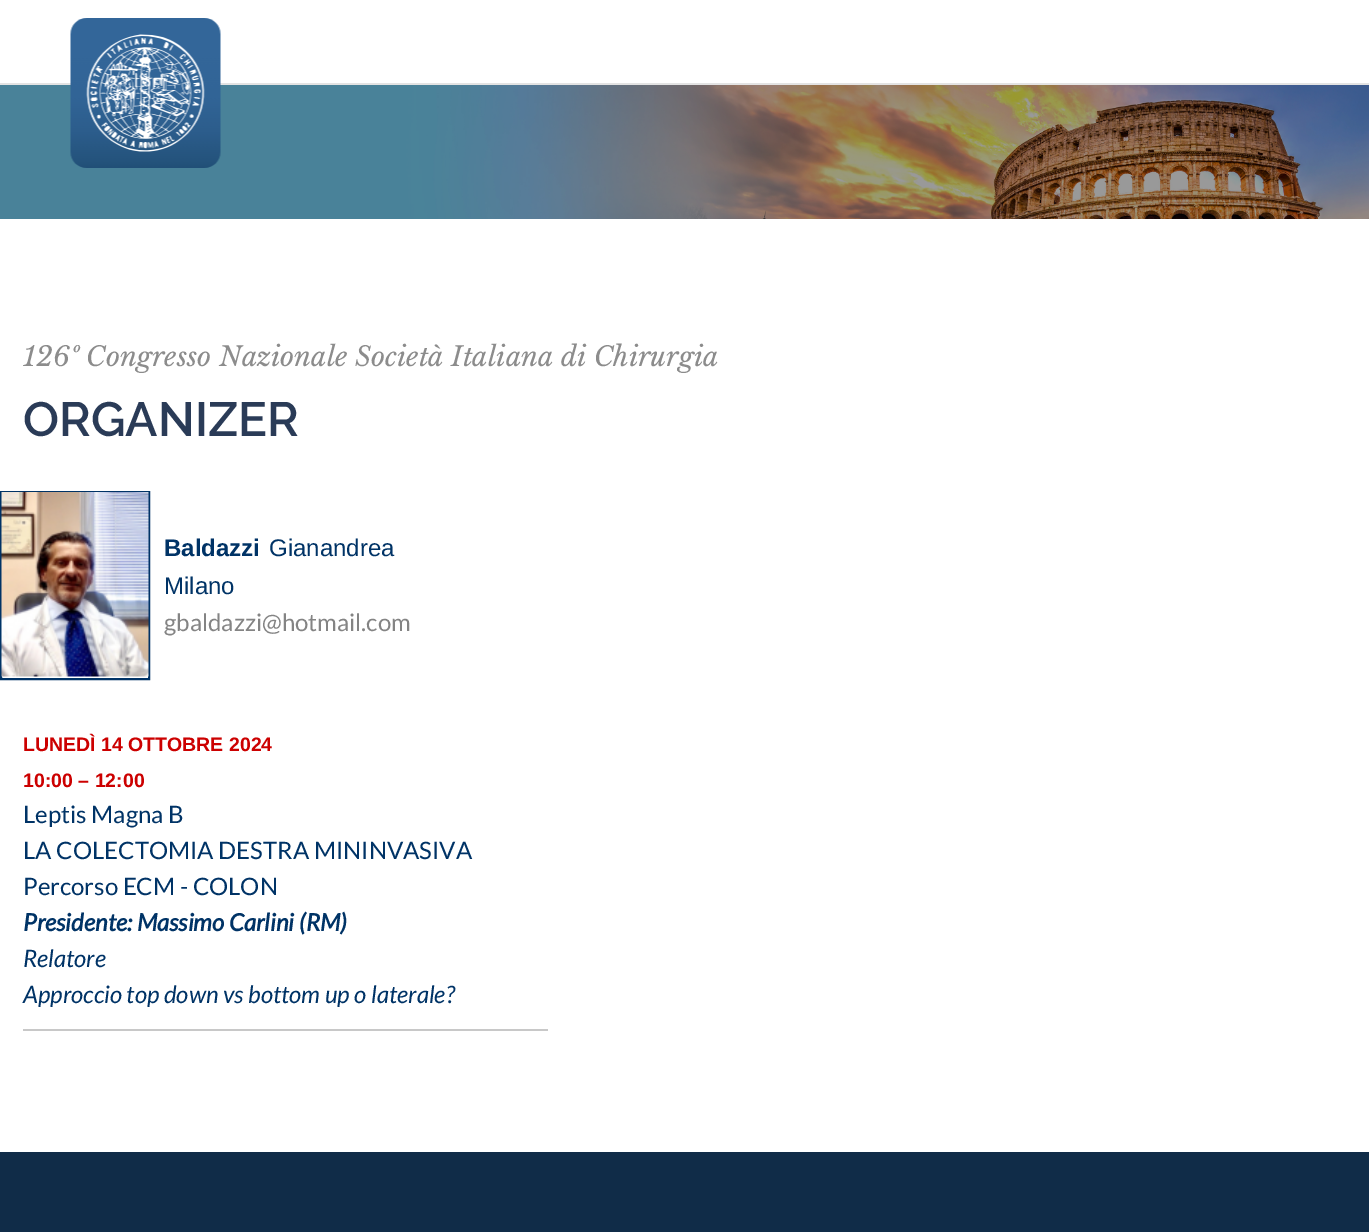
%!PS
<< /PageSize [1369 1232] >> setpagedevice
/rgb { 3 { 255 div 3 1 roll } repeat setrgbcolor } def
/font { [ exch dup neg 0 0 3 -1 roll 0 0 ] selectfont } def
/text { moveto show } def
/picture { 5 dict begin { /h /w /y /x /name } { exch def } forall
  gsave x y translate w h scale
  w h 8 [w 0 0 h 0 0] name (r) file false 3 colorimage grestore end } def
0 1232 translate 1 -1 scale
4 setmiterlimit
255 255 255 rgb
0 0 1369 1232 rectfill
227 227 227 rgb
0 83 1369 2 rectfill
(img_02.rgb) 0 85 1369 134 picture
(img_01.rgb) 70 18 151 150 picture
0 51 102 rgb
2 setlinewidth
1 492 148 187 rectstroke
(img_03.rgb) 1 492 148 185 picture
200 200 200 rgb
23 1029 525 2 rectfill
16 44 72 rgb
0 1152 1369 80 rectfill
/LibreBaskerville-Italic 27 font
140 140 140 rgb
(126º Congresso Nazionale Società Italiana di Chirurgia) 23 366 text
/Raleway-SemiBold 48 font
42 59 87 rgb
(ORGANIZER) 23 436 text
/LiberationSans-Bold 24 font
0 51 102 rgb
(Baldazzi) 164 556 text
/LiberationSans-Regular 24 font
(Gianandrea) 269 556 text
(Milano) 164 594 text
/Lato-Regular 24 font
132 132 132 rgb
(gbaldazzi@hotmail.com) 164 631 text
/LiberationSans-Bold 19.5 font
204 0 0 rgb
(LUNEDÌ 14 OTTOBRE 2024) 23 751 text
(10:00 – 12:00) 23 787 text
/Lato-Regular 24 font
0 51 102 rgb
(Leptis Magna B) 23 823 text
(LA COLECTOMIA DESTRA MININVASIVA) 23 859 text
(Percorso ECM - COLON) 23 895 text
/Lato-BoldItalic 24 font
(Presidente: Massimo Carlini \(RM\)) 23 931 text
/Lato-Italic 24 font
(Relatore) 23 967 text
(Approccio top down vs bottom up o laterale?) 23 1003 text
showpage
